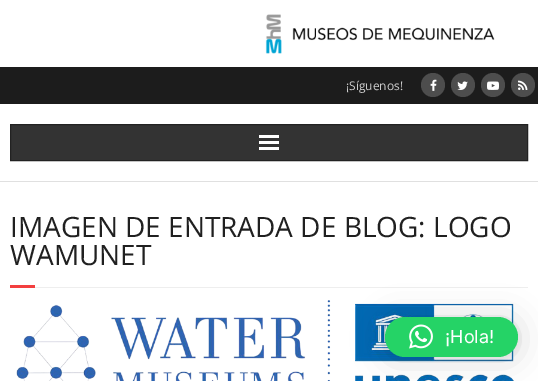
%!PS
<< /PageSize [538 381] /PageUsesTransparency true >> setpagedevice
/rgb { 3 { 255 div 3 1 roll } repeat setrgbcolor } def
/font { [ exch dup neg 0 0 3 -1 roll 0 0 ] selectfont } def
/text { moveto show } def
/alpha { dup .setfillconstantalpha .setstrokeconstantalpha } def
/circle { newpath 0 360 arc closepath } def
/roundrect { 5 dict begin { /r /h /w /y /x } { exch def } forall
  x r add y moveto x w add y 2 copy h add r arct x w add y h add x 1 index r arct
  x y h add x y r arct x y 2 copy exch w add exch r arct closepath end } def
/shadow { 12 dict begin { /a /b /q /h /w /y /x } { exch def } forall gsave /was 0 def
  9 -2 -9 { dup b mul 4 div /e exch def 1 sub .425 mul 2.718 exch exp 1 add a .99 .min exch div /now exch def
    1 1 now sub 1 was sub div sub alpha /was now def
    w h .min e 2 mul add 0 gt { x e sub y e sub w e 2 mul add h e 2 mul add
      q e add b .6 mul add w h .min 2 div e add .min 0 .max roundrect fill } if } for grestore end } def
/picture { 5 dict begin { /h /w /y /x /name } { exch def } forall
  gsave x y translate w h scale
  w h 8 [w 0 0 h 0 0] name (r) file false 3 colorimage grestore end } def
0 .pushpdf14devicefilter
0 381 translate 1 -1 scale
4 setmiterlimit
255 255 255 rgb
0 0 538 381 rectfill
(img_01.rgb) 265 14 230 40 picture
28 28 28 rgb
0 67 538 37 rectfill
77 77 77 rgb
433 85 12 circle fill
(img_02.rgb) 430 79 7 12 picture
463 85 12 circle fill
(img_03.rgb) 457 81 11 9 picture
493 85 12 circle fill
(img_04.rgb) 487 81 12 9 picture
523 85 12 circle fill
(img_05.rgb) 518 80 10 10 picture
224 224 224 rgb
0 181 538 1 rectfill
51 51 51 rgb
10.5 124.5 moveto 517 0 rlineto 0 36 rlineto -517 0 rlineto closepath gsave fill grestore
34 34 34 rgb
stroke
255 255 255 rgb
259 135 20 3 rectfill
259 141 20 3 rectfill
259 147 20 3 rectfill
243 63 63 rgb
10 285 25 3 rectfill
238 238 238 rgb
35 287 493 1 rectfill
(img_06.rgb) 16 300 498 81 picture
0 0 0 rgb
385 319 133 40 20 16 0.16 shadow
385 318 133 40 20 3 0.06 shadow
37 211 102 rgb
385 317 133 40 20 roundrect fill
(img_07.rgb) 409 324 24 25 picture
/OpenSans-Regular 12 font
204 204 204 rgb
(¡Síguenos!) 346 90 text
/OpenSans-Regular 28 font
32 32 32 rgb
(IMAGEN DE ENTRADA DE BLOG: LOGO) 10 237 text
(WAMUNET) 10 265 text
/Inter-Regular 18 font
255 255 255 rgb
(¡Hola!) 445 343 text
.poppdf14devicefilter showpage
